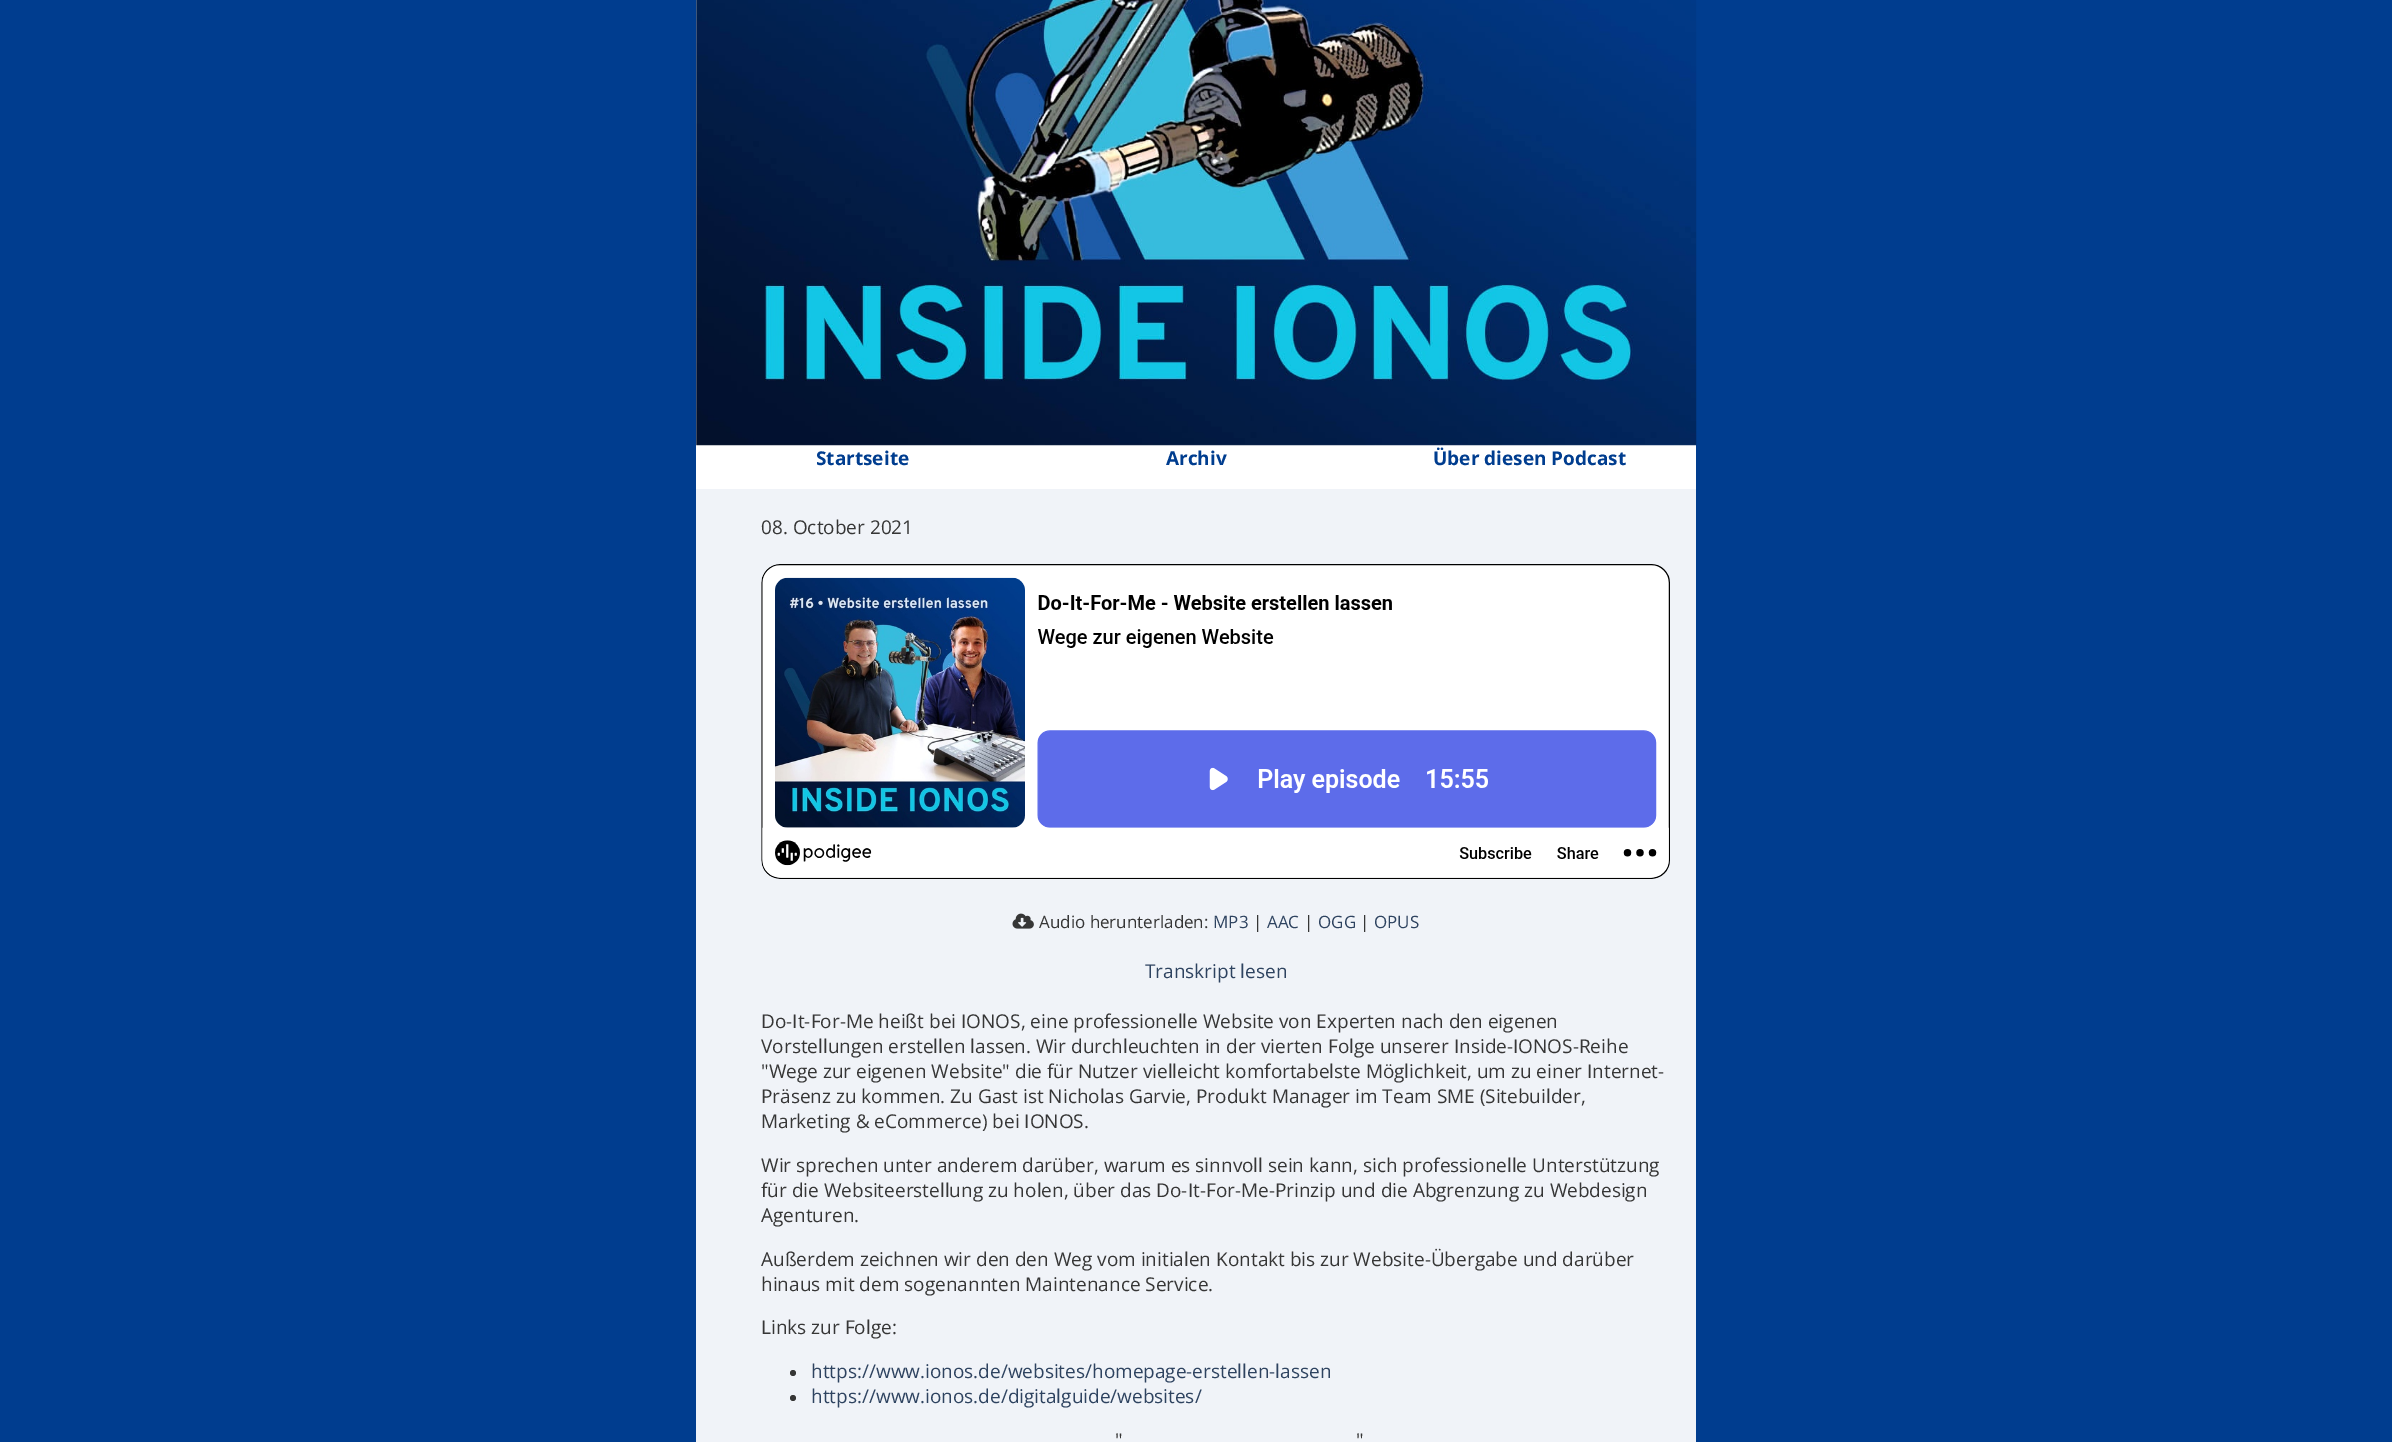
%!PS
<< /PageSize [2392 1442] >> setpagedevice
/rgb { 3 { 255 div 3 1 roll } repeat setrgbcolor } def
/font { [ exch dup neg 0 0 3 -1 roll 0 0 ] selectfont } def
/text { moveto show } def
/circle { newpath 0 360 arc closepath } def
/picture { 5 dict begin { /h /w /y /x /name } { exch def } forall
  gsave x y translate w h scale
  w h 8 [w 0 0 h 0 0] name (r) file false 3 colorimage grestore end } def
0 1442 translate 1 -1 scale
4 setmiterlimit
0 61 143 rgb
0 0 2392 1442 rectfill
255 255 255 rgb
696 0 1000 489 rectfill
(img_01.rgb) 696 0 1001 446 picture
240 243 248 rgb
696 489 1000 953 rectfill
(img_02.rgb) 761 564 909 315 picture
(img_03.rgb) 1012 913 22 16 picture
54 54 54 rgb
793 1373 3 circle fill
793 1398 3 circle fill
/OpenSans-Bold 19 font
0 61 143 rgb
(Startseite) 816 465 text
(Archiv) 1166 465 text
(Über diesen Podcast) 1433 465 text
/OpenSans-Regular 19 font
54 54 54 rgb
(08. October 2021) 761 534 text
/OpenSans-Regular 17 font
(Audio herunterladen:) 1039 928 text
46 67 96 rgb
(MP3) 1213 928 text
54 54 54 rgb
(|) 1253 928 text
46 67 96 rgb
(AAC) 1267 928 text
54 54 54 rgb
(|) 1304 928 text
46 67 96 rgb
(OGG) 1318 928 text
54 54 54 rgb
(|) 1360 928 text
46 67 96 rgb
(OPUS) 1374 928 text
/OpenSans-Regular 19 font
(Transkript lesen) 1145 978 text
54 54 54 rgb
(Do-It-For-Me heißt bei IONOS, eine professionelle Website von Experten nach den eigenen) 761 1028 text
(Vorstellungen erstellen lassen. Wir durchleuchten in der vierten Folge unserer Inside-IONOS-Reihe) 761 1053 text
("Wege zur eigenen Website" die für Nutzer vielleicht komfortabelste Möglichkeit, um zu einer Internet-) 761 1078 text
(Präsenz zu kommen. Zu Gast ist Nicholas Garvie, Produkt Manager im Team SME \(Sitebuilder,) 761 1103 text
(Marketing & eCommerce\) bei IONOS.) 761 1128 text
(Wir sprechen unter anderem darüber, warum es sinnvoll sein kann, sich professionelle Unterstützung) 761 1172 text
(für die Websiteerstellung zu holen, über das Do-It-For-Me-Prinzip und die Abgrenzung zu Webdesign) 761 1197 text
(Agenturen.) 761 1222 text
(Außerdem zeichnen wir den den Weg vom initialen Kontakt bis zur Website-Übergabe und darüber) 761 1266 text
(hinaus mit dem sogenannten Maintenance Service.) 761 1291 text
(Links zur Folge:) 761 1334 text
46 67 96 rgb
(https://www.ionos.de/websites/homepage-erstellen-lassen) 811 1378 text
(https://www.ionos.de/digitalguide/websites/) 811 1403 text
54 54 54 rgb
(") 1115 1447 text
(") 1356 1447 text
showpage
